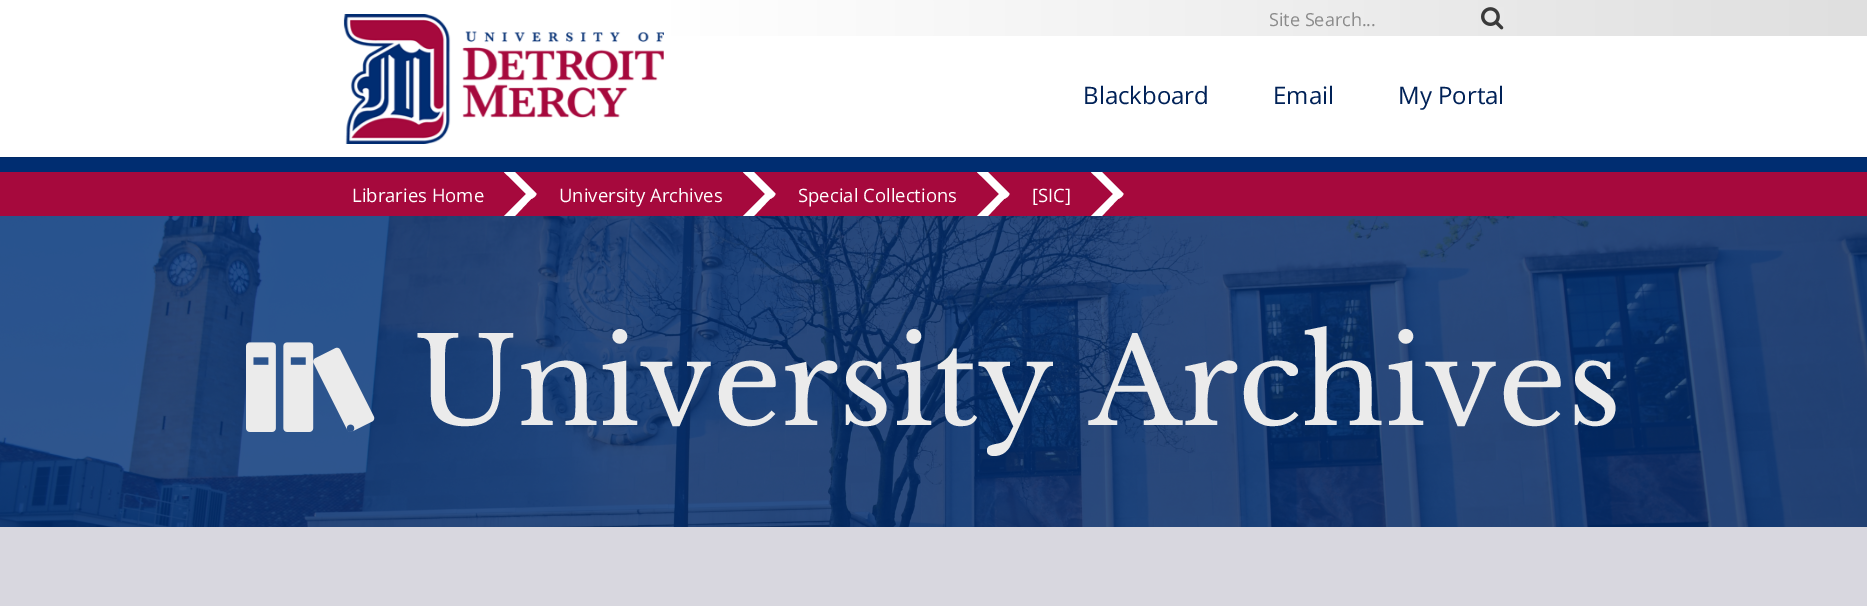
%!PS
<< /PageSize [1867 606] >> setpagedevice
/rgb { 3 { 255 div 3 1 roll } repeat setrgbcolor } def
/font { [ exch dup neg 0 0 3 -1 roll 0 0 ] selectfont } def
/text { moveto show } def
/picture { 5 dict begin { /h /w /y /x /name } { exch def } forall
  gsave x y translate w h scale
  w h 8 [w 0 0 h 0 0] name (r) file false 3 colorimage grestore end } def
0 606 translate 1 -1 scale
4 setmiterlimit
216 215 223 rgb
0 0 1867 606 rectfill
255 255 255 rgb
0 36 1867 121 rectfill
gsave 0 0 moveto 1867 0 rlineto 0 36 rlineto -1867 0 rlineto closepath clip newpath
<< /ShadingType 2 /ColorSpace /DeviceRGB /Coords [0 18 1867 18] /Extend [true true] /Function << /FunctionType 3 /Domain [0 1] /Functions [<< /FunctionType 2 /Domain [0 1] /C0 [1 1 1] /C1 [1 1 1] /N 1 >> << /FunctionType 2 /Domain [0 1] /C0 [1 1 1] /C1 [0.875 0.875 0.875] /N 1 >>] /Bounds [0.35] /Encode [0 1 0 1] >> >> shfill grestore
(img_01.rgb) 1481 7 23 23 picture
(img_02.rgb) 343 14 321 130 picture
0 45 113 rgb
0 158 1867 14 rectfill
0 41 103 rgb
0 157 1867 1 rectfill
166 9 61 rgb
0 172 1867 44 rectfill
gsave
503 172 36 44 rectclip
255 255 255 rgb
536 193 moveto 2 2 -4 6 -5 6 rcurveto -17 18 rlineto 0 0 -4 6 -7 4 rcurveto -1 -1 -5 -3 -3 -5 rcurveto 22 -22 rlineto -18 -18 rlineto -4 -4 -6 -4 -2 -8 rcurveto 4 -4 4 -1 8 3 rcurveto closepath fill
grestore
gsave
742 172 35 44 rectclip
255 255 255 rgb
775 193 moveto 2 2 -4 6 -5 6 rcurveto -17 18 rlineto 0 0 -4 6 -7 4 rcurveto -1 -1 -5 -3 -3 -5 rcurveto 22 -22 rlineto -18 -18 rlineto -4 -4 -6 -4 -2 -8 rcurveto 4 -4 4 -1 8 3 rcurveto closepath fill
grestore
gsave
976 172 35 44 rectclip
255 255 255 rgb
1009 193 moveto 2 2 -4 6 -5 6 rcurveto -17 18 rlineto 0 0 -4 6 -7 4 rcurveto -1 -1 -5 -3 -3 -5 rcurveto 22 -22 rlineto -18 -18 rlineto -4 -4 -6 -4 -2 -8 rcurveto 4 -4 4 -1 8 3 rcurveto closepath fill
grestore
gsave
1090 172 36 44 rectclip
255 255 255 rgb
1123 193 moveto 2 2 -4 6 -5 6 rcurveto -17 18 rlineto 0 0 -4 6 -7 4 rcurveto -1 -1 -5 -3 -3 -5 rcurveto 22 -22 rlineto -18 -18 rlineto -4 -4 -6 -4 -2 -8 rcurveto 4 -4 4 -1 8 3 rcurveto closepath fill
grestore
(img_03.rgb) 0 216 1867 311 picture
(img_04.rgb) 246 342 129 90 picture
/OpenSans-Regular 18 font
139 139 139 rgb
(Site Search...) 1269 26 text
/OpenSans-Regular 24 font
0 33 87 rgb
(Blackboard) 1083 104 text
(Email) 1273 104 text
(My Portal) 1398 104 text
/OpenSans-Regular 18.5 font
255 255 255 rgb
(Libraries Home) 352 202 text
(University Archives) 559 202 text
(Special Collections) 798 202 text
([SIC]) 1032 202 text
/LibreBaskerville-Regular 119.5 font
235 235 235 rgb
(University Archives) 414 425 text
showpage
